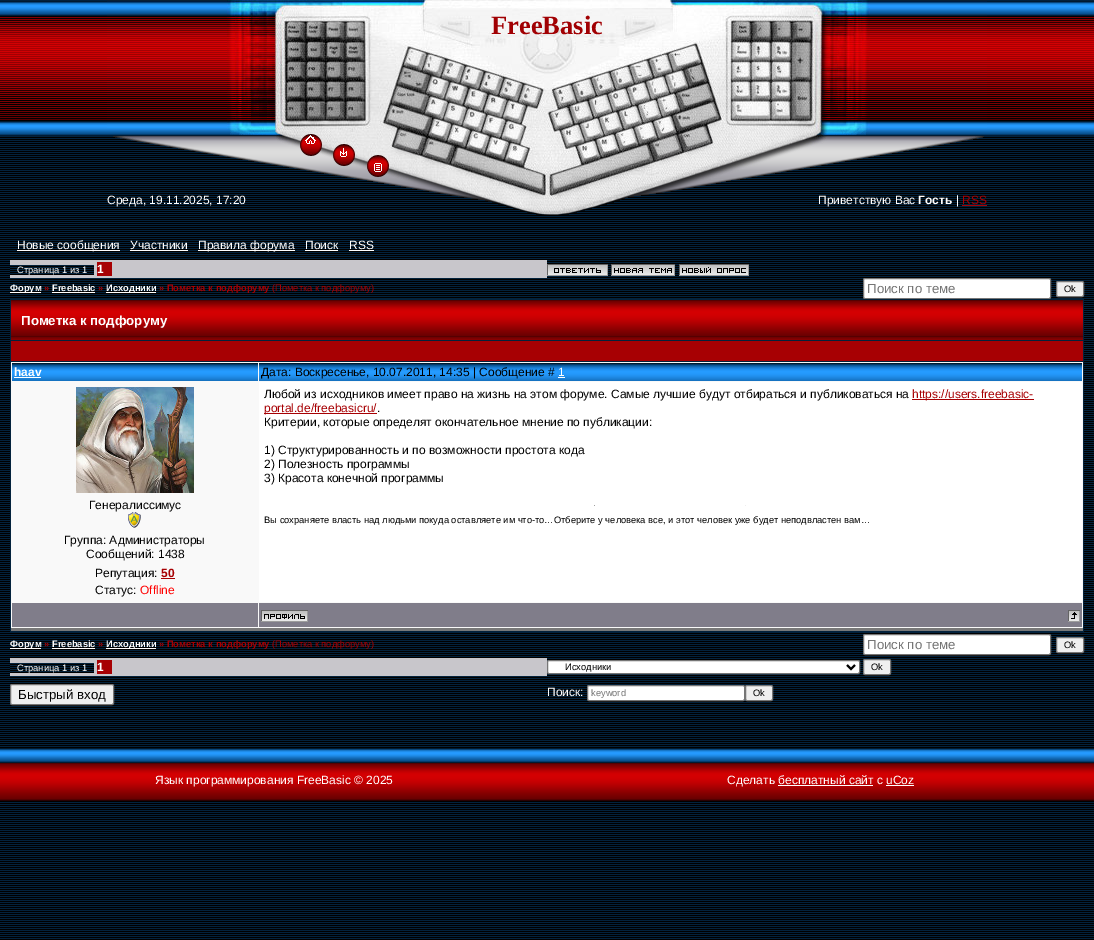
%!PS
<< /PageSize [1094 940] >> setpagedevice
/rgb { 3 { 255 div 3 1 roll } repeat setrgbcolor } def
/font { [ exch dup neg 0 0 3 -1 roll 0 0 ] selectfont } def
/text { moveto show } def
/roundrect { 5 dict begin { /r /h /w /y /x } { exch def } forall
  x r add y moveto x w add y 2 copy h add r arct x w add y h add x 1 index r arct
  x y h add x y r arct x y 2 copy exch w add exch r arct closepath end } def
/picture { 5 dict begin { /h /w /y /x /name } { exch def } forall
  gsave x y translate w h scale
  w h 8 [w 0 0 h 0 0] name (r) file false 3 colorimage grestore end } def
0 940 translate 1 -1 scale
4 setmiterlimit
3 34 60 rgb
0 0 1094 940 rectfill
(img_01.rgb) 0 136 1094 804 picture
(img_02.rgb) 0 1 1094 135 picture
(img_03.rgb) 107 0 325 130 picture
(img_04.rgb) 432 0 230 130 picture
(img_05.rgb) 662 0 325 130 picture
(img_06.rgb) 113 130 319 50 picture
(img_07.rgb) 305 135 11 9 picture
(img_08.rgb) 340 148 7 9 picture
(img_09.rgb) 374 163 8 9 picture
(img_10.rgb) 432 130 230 50 picture
(img_11.rgb) 662 130 322 50 picture
(img_12.rgb) 367 180 65 12 picture
(img_13.rgb) 432 180 230 35 picture
(img_14.rgb) 662 180 69 13 picture
167 0 3 rgb
962 205 25 1 rectfill
255 255 255 rgb
17 250 103 1 rectfill
130 250 58 1 rectfill
198 250 97 1 rectfill
305 250 33 1 rectfill
349 250 25 1 rectfill
200 198 203 rgb
10 260 537 18 rectfill
3 34 60 rgb
10 265 84 1 rectfill
(img_15.rgb) 10 266 84 9 picture
167 0 3 rgb
97 262 15 14 rectfill
(img_16.rgb) 547 264 61 12 picture
(img_17.rgb) 611 264 64 12 picture
(img_18.rgb) 679 264 70 12 picture
255 255 255 rgb
10 292 31 1 rectfill
52 292 43 1 rectfill
106 292 50 1 rectfill
863.5 278.5 187 20 1.5 roundrect gsave fill grestore
118 118 118 rgb
stroke
239 239 239 rgb
1056.5 281.5 27 15 1.5 roundrect gsave fill grestore
118 118 118 rgb
stroke
3 34 60 rgb
10 299 1074 333 rectfill
(img_19.rgb) 11 300 1072 40 picture
167 0 3 rgb
11 341 1072 20 rectfill
249 249 249 rgb
11 362 1072 266 rectfill
120 120 120 rgb
11 628 1072 3 rectfill
(img_20.rgb) 12 363 246 18 picture
255 255 255 rgb
14 377 27 1 rectfill
(img_21.rgb) 259 363 823 18 picture
558 377 7 1 rectfill
259 382 823 220 rectfill
167 0 3 rgb
912 399 122 1 rectfill
264 413 113 1 rectfill
238 238 238 rgb
745 505 1 1 rectfill
159 159 159 rgb
594 505 1 1 rectfill
(img_22.rgb) 76 387 118 106 picture
(img_23.rgb) 128 512 13 16 picture
167 0 3 rgb
161 578 14 1 rectfill
128 125 138 rgb
12 603 246 24 rectfill
259 603 823 24 rectfill
(img_24.rgb) 261 610 47 12 picture
(img_25.rgb) 1068 610 12 12 picture
255 255 255 rgb
10 648 31 1 rectfill
52 648 43 1 rectfill
106 648 50 1 rectfill
863.5 634.5 187 20 1.5 roundrect gsave fill grestore
118 118 118 rgb
stroke
239 239 239 rgb
1056.5 637.5 27 15 1.5 roundrect gsave fill grestore
118 118 118 rgb
stroke
200 198 203 rgb
10 658 537 18 rectfill
3 34 60 rgb
10 663 84 1 rectfill
(img_15.rgb) 10 664 84 9 picture
167 0 3 rgb
97 660 15 14 rectfill
255 255 255 rgb
547.5 660.5 312 13 1.5 roundrect gsave fill grestore
118 118 118 rgb
stroke
0 0 0 rgb
2 setlinewidth
847 665 moveto 4 4 rlineto 4 -4 rlineto stroke
239 239 239 rgb
863.5 659.5 27 15 1.5 roundrect gsave fill grestore
118 118 118 rgb
1 setlinewidth
stroke
239 239 239 rgb
10.5 684.5 103 20 1.5 roundrect gsave fill grestore
118 118 118 rgb
stroke
255 255 255 rgb
587.5 685.5 157 15 1.5 roundrect gsave fill grestore
118 118 118 rgb
stroke
239 239 239 rgb
745.5 685.5 27 15 1.5 roundrect gsave fill grestore
118 118 118 rgb
stroke
(img_26.rgb) 0 748 1094 53 picture
255 255 255 rgb
778 785 95 1 rectfill
886 785 28 1 rectfill
/LiberationSerif-Bold 26.5 font
161 0 3 rgb
(FreeBasic) 491 34 text
/LiberationSans-Regular 12 font
255 255 255 rgb
(Среда, 19.11.2025, 17:20) 107 204 text
(Приветствую Вас) 818 204 text
/LiberationSans-Bold 12 font
(Гость) 918 204 text
/LiberationSans-Regular 12 font
(|) 956 204 text
167 0 3 rgb
(RSS) 962 204 text
255 255 255 rgb
(Новые сообщения) 17 249 text
(Участники) 130 249 text
(Правила форума) 198 249 text
(Поиск) 305 249 text
(RSS) 349 249 text
/LiberationSans-Regular 9.33 font
(Страница 1 из 1) 17 273 text
/LiberationSans-Bold 12 font
(1) 97 273 text
/LiberationSans-Bold 9.33 font
(Форум) 10 291 text
167 0 3 rgb
(») 44 291 text
255 255 255 rgb
(Freebasic) 52 291 text
167 0 3 rgb
(») 98 291 text
255 255 255 rgb
(Исходники) 106 291 text
167 0 3 rgb
(» Пометка к подфоруму) 159 291 text
/LiberationSans-Regular 9.33 font
(\(Пометка к подфоруму\)) 272 291 text
/LiberationSans-Regular 13.25 font
117 117 117 rgb
(Поиск по теме) 867 293 text
/LiberationSans-Regular 9.33 font
0 0 0 rgb
(Ok) 1064 292 text
/LiberationSans-Bold 13.25 font
255 255 255 rgb
(Пометка к подфоруму) 21 325 text
/LiberationSans-Bold 12 font
(haav) 14 376 text
/LiberationSans-Regular 12 font
0 0 0 rgb
(Дата: Воскресенье, 10.07.2011, 14:35 | Сообщение #) 261 376 text
255 255 255 rgb
(1) 558 376 text
0 0 0 rgb
(Любой из исходников имеет право на жизнь на этом форуме. Самые лучшие будут отбираться и публиковаться на) 264 398 text
167 0 3 rgb
(https://users.freebasic-) 912 398 text
(portal.de/freebasicru/) 264 412 text
0 0 0 rgb
(.) 377 412 text
(Критерии, которые определят окончательное мнение по публикации:) 264 426 text
(1\) Структурированность и по возможности простота кода) 264 454 text
(2\) Полезность программы) 264 468 text
(3\) Красота конечной программы) 264 482 text
/LiberationSans-Regular 9.33 font
(Вы сохраняете власть над людьми покуда оставляете им что-то…Отберите у человека все, и этот человек уже будет неподвластен вам…) 264 523 text
/LiberationSans-Regular 12 font
(Генералиссимус) 89 509 text
(Группа: Администраторы) 64 544 text
(Сообщений: 1438) 86 558 text
(Репутация:) 95 577 text
/LiberationSans-Bold 12 font
167 0 3 rgb
(50) 161 577 text
/LiberationSans-Regular 12 font
0 0 0 rgb
(Статус:) 95 594 text
255 0 0 rgb
(Offline) 140 594 text
/LiberationSans-Bold 9.33 font
255 255 255 rgb
(Форум) 10 647 text
167 0 3 rgb
(») 44 647 text
255 255 255 rgb
(Freebasic) 52 647 text
167 0 3 rgb
(») 98 647 text
255 255 255 rgb
(Исходники) 106 647 text
167 0 3 rgb
(» Пометка к подфоруму) 159 647 text
/LiberationSans-Regular 9.33 font
(\(Пометка к подфоруму\)) 272 647 text
/LiberationSans-Regular 13.25 font
117 117 117 rgb
(Поиск по теме) 867 649 text
/LiberationSans-Regular 9.33 font
0 0 0 rgb
(Ok) 1064 648 text
255 255 255 rgb
(Страница 1 из 1) 17 671 text
/LiberationSans-Bold 12 font
(1) 97 671 text
/LiberationSans-Regular 9.33 font
0 0 0 rgb
(Исходники) 565 670 text
(Ok) 871 670 text
/LiberationSans-Regular 13.25 font
(Быстрый вход) 18 699 text
/LiberationSans-Regular 12 font
255 255 255 rgb
(Поиск:) 547 696 text
/LiberationSans-Regular 9.33 font
117 117 117 rgb
(keyword) 591 696 text
0 0 0 rgb
(Ok) 753 696 text
/LiberationSans-Regular 12 font
255 255 255 rgb
(Язык программирования FreeBasic © 2025) 155 784 text
(Сделать бесплатный сайт с uCoz) 727 784 text
showpage
